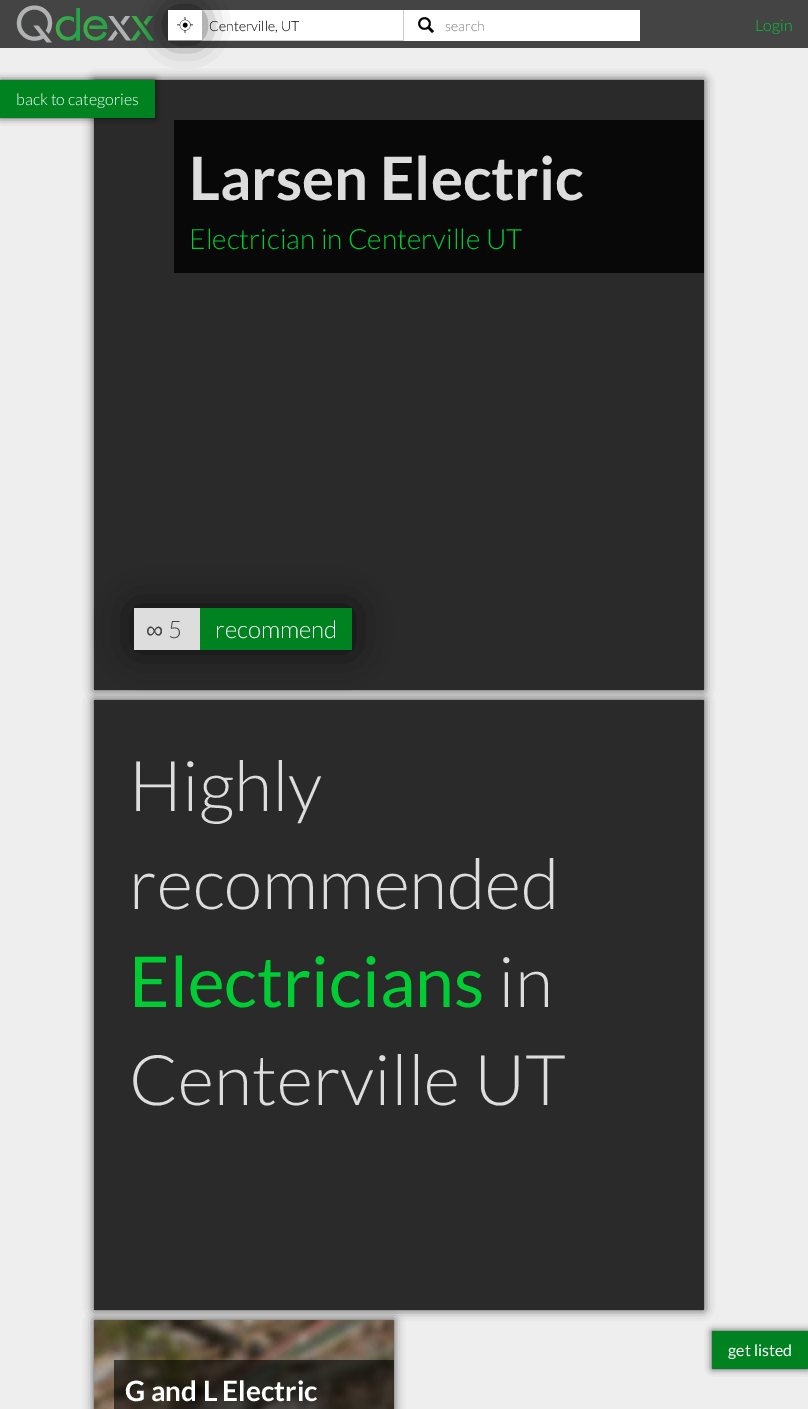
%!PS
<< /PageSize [808 1409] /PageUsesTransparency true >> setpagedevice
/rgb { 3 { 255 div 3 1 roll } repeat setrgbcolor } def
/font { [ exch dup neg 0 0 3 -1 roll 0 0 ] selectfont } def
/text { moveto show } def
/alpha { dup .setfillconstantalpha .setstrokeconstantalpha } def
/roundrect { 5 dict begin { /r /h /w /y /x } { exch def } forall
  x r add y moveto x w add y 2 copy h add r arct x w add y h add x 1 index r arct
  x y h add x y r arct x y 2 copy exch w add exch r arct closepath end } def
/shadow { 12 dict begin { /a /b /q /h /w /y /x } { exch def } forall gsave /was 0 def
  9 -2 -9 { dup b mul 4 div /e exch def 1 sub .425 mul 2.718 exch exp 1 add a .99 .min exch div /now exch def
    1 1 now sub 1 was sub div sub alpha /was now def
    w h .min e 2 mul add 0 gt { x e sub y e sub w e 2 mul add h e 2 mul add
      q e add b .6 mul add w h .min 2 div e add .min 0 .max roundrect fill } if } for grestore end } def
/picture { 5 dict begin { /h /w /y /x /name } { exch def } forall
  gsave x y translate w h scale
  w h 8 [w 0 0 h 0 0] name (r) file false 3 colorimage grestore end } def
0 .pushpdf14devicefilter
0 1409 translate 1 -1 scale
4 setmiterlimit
238 238 238 rgb
0 0 808 1409 rectfill
68 68 68 rgb
0 0 808 48 rectfill
(img_01.rgb) 16 5 138 38 picture
255 255 255 rgb
404 10 236 31 rectfill
204 204 204 rgb
403 10 1 31 rectfill
168 40 236 1 rectfill
255 255 255 rgb
168 10 235 30 rectfill
0 0 0 rgb
94 80 610 610 0 5 0.7 shadow
42 42 42 rgb
94 80 610 610 rectfill
0 0 0 rgb
0 80 155 38 0 3.5 0.7 shadow
0 130 33 rgb
0 80 155 38 rectfill
gsave
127 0 moveto 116 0 rlineto 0 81 rlineto -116 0 rlineto closepath 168 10 moveto 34 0 rlineto 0 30 rlineto -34 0 rlineto closepath eoclip newpath
0 0 0 rgb
173 15 24 20 0 15 1 shadow
grestore
(img_02.rgb) 177 17 16 16 picture
(img_03.rgb) 418 17 16 16 picture
8 8 8 rgb
174 120 530 153 rectfill
0 0 0 rgb
94 700 610 610 0 5 0.7 shadow
42 42 42 rgb
94 700 610 610 rectfill
0 0 0 rgb
134 608 218 42 0 18.5 0.7 shadow
221 221 221 rgb
134 608 66 42 rectfill
0 130 33 rgb
200 608 152 42 rectfill
0 0 0 rgb
94 1320 300 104 0 5 0.7 shadow
(img_04.rgb) 94 1320 300 89 picture
0.6 alpha
114 1360 280 49 rectfill
1 alpha
712 1331 96 38 0 3.5 0.7 shadow
0 130 33 rgb
712 1331 96 38 rectfill
/Lato-Light 14 font
0 0 0 rgb
(Centerville, UT) 209 31 text
117 117 117 rgb
(search) 445 31 text
/Lato-Light 16 font
0 204 51 rgb
(Login) 755 31 text
255 255 255 rgb
(back to categories) 16 105 text
/Lato-Bold 60 font
221 221 221 rgb
(Larsen Electric) 189 200 text
/Lato-Light 28 font
0 204 51 rgb
(Electrician in Centerville UT) 189 249 text
/LiberationSans-Regular 24 font
68 68 68 rgb
(∞) 146 638 text
/Lato-Light 24 font
(5) 168 638 text
255 255 255 rgb
(recommend) 215 638 text
/Lato-Light 70 font
221 221 221 rgb
(Highly) 129 811 text
(recommended) 129 909 text
/Lato-Regular 70 font
0 204 51 rgb
(Electricians) 129 1007 text
/Lato-Light 70 font
221 221 221 rgb
(in) 498 1007 text
(Centerville UT) 129 1105 text
/Lato-Bold 28 font
255 255 255 rgb
(G and L Electric) 125 1401 text
/Lato-Regular 16 font
(get listed) 728 1356 text
.poppdf14devicefilter showpage
